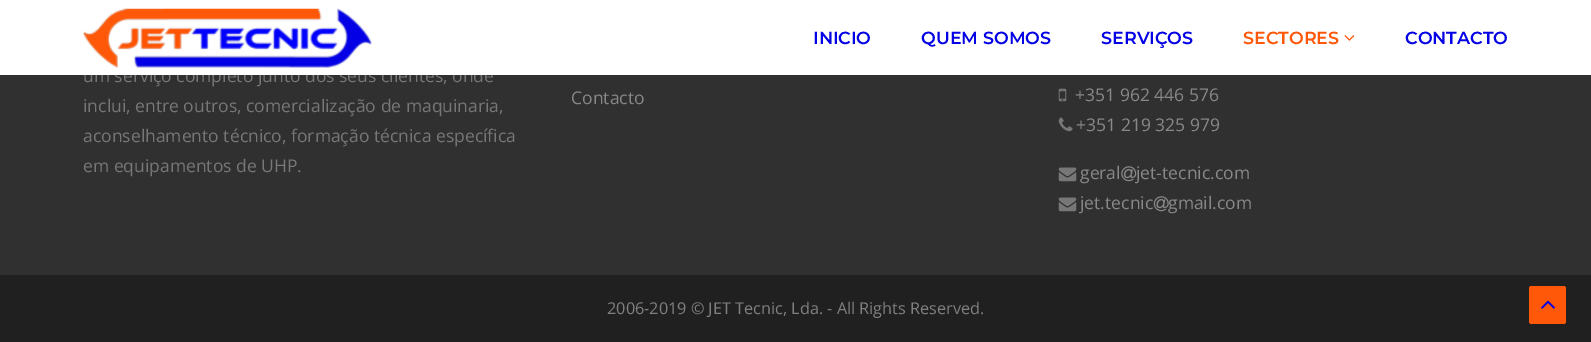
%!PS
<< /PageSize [1591 342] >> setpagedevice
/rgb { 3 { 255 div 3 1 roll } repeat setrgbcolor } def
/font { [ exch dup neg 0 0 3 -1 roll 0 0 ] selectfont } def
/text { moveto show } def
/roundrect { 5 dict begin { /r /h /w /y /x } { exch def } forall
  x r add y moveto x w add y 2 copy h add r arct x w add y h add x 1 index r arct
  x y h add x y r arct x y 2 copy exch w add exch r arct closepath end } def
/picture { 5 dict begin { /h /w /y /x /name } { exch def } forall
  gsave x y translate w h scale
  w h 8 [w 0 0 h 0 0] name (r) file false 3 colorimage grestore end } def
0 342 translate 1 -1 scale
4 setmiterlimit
48 48 48 rgb
0 0 1591 342 rectfill
(img_03.rgb) 1058 88 9 14 picture
(img_04.rgb) 1058 117 15 15 picture
(img_05.rgb) 1058 167 19 15 picture
(img_06.rgb) 1121 166 16 16 picture
(img_05.rgb) 1058 197 19 15 picture
(img_07.rgb) 1153 196 16 16 picture
32 32 32 rgb
0 275 1591 67 rectfill
255 88 8 rgb
1529 286 37 38 2.5 roundrect fill
(img_08.rgb) 1541 300 14 9 picture
/OpenSans-Regular 17.5 font
119 119 119 rgb
(um serviço completo junto dos seus clientes, onde) 83 82 text
255 255 255 rgb
0 0 1591 75 rectfill
/Montserrat-SemiBold 17.5 font
4 0 229 rgb
(CONTACTO) 1405 44 text
(img_02.rgb) 1344 35 11 6 picture
255 88 8 rgb
(SECTORES) 1243 44 text
4 0 229 rgb
(SERVIÇOS) 1101 44 text
(QUEM SOMOS) 921 44 text
(INICIO) 813 44 text
(img_01.rgb) 83 8 289 60 picture
/OpenSans-Regular 17.5 font
119 119 119 rgb
(inclui, entre outros, comercialização de maquinaria,) 83 112 text
(aconselhamento técnico, formação técnica específica) 83 142 text
(em equipamentos de UHP.) 83 172 text
136 136 136 rgb
(Contacto) 571 104 text
(+351 962 446 576) 1075 101 text
(+351 219 325 979) 1076 131 text
(geral) 1080 179 text
(jet-tecnic.com) 1136 179 text
(jet.tecnic) 1080 209 text
(gmail.com) 1168 209 text
/OpenSans-Regular 16.25 font
128 128 128 rgb
(2006-2019 © JET Tecnic, Lda. - All Rights Reserved.) 607 314 text
showpage
